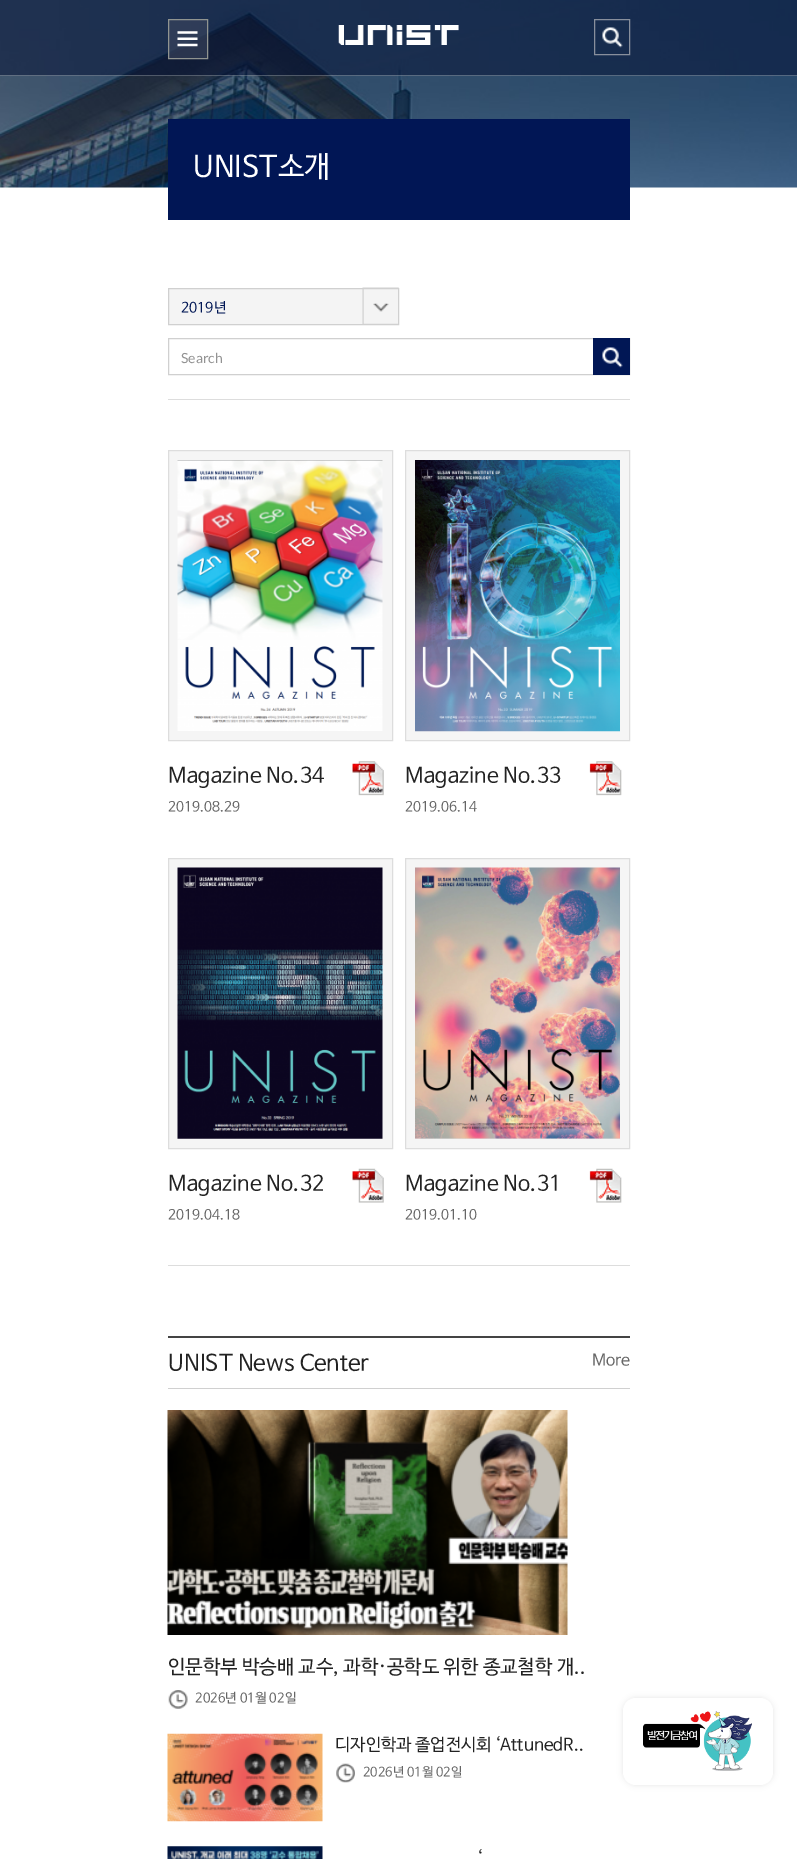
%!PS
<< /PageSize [797 1859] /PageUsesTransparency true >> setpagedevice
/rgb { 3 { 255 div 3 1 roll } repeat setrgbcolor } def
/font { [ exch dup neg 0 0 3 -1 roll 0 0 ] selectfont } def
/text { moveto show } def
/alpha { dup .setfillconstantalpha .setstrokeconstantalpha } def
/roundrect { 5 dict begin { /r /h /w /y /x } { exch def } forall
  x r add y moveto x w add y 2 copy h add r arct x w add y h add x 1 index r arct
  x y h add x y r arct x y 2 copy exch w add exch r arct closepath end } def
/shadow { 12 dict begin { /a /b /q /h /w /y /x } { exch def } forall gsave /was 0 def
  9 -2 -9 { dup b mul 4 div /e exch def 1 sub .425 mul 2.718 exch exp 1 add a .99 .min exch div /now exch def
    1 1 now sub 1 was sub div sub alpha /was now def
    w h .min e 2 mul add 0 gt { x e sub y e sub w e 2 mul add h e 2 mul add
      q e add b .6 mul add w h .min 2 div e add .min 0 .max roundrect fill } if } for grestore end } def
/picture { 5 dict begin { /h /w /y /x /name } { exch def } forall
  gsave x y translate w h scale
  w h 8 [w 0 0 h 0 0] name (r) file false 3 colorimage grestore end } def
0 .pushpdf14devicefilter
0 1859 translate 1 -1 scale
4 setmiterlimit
255 255 255 rgb
0 0 797 1859 rectfill
(img_04.rgb) 0 0 797 188 picture
0.5 alpha
128 135 149 rgb
0 75 797 1 rectfill
2 14 50 rgb
0 0 797 75 rectfill
0.6 alpha
60 70 94 rgb
168.5 19.5 moveto 39 0 rlineto 0 39 rlineto -39 0 rlineto closepath fill
1 alpha
144 148 144 rgb
168.5 19.5 moveto 39 0 rlineto 0 39 rlineto -39 0 rlineto closepath stroke
(img_01.rgb) 177 31 21 16 picture
(img_02.rgb) 338 25 121 20 picture
(img_03.rgb) 602 27 21 21 picture
136 143 156 rgb
594.5 19.5 35 35 rectstroke
1 22 85 rgb
168 119 462 101 rectfill
244 244 244 rgb
169 289 194 35 rectfill
(img_05.rgb) 362 287 37 37 picture
208 208 208 rgb
168.5 288.5 230 36 rectstroke
168.5 338.5 461 36 rectstroke
1 23 85 rgb
593 338 37 37 rectfill
(img_06.rgb) 602 347 21 21 picture
221 221 221 rgb
168 399 462 1 rectfill
168 1265 462 1 rectfill
245 245 245 rgb
168.5 450.5 moveto 224 0 rlineto 0 290 rlineto -224 0 rlineto closepath gsave fill grestore
221 221 221 rgb
stroke
(img_07.rgb) 177 460 206 271 picture
(img_08.rgb) 352 761 32 35 picture
245 245 245 rgb
405.5 450.5 moveto 224 0 rlineto 0 290 rlineto -224 0 rlineto closepath gsave fill grestore
221 221 221 rgb
stroke
(img_09.rgb) 415 460 205 272 picture
(img_10.rgb) 589 761 33 35 picture
245 245 245 rgb
168.5 858.5 moveto 224 0 rlineto 0 290 rlineto -224 0 rlineto closepath gsave fill grestore
221 221 221 rgb
stroke
(img_11.rgb) 177 867 206 272 picture
(img_12.rgb) 352 1168 32 35 picture
245 245 245 rgb
405.5 858.5 moveto 224 0 rlineto 0 290 rlineto -224 0 rlineto closepath gsave fill grestore
221 221 221 rgb
stroke
(img_13.rgb) 415 867 205 272 picture
(img_14.rgb) 589 1168 33 35 picture
68 68 68 rgb
168 1336 462 2 rectfill
208 208 208 rgb
168 1388 462 1 rectfill
(img_15.rgb) 167 1410 401 225 picture
(img_16.rgb) 168 1690 20 19 picture
(img_17.rgb) 167 1733 156 89 picture
(img_18.rgb) 336 1763 19 20 picture
(img_19.rgb) 167 1846 156 13 picture
0 0 0 rgb
623 1698 150 87 13 3 0.1 shadow
255 255 255 rgb
623 1698 150 87 13 roundrect fill
(img_20.rgb) 643 1711 109 60 picture
/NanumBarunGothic-Regular 29.5 font
(UNIST소개) 193 176 text
/NanumBarunGothic-Regular 14 font
1 23 85 rgb
(2019년) 181 312 text
/Lato-Regular 14 font
147 147 147 rgb
(Search) 181 363 text
/NanumBarunGothic-Regular 21 font
34 34 34 rgb
(Magazine No.34) 168 782 text
/NanumBarunGothic-Regular 13.75 font
102 102 102 rgb
(2019.08.29) 168 811 text
/NanumBarunGothic-Regular 21 font
34 34 34 rgb
(Magazine No.33) 405 782 text
/NanumBarunGothic-Regular 13.75 font
102 102 102 rgb
(2019.06.14) 405 811 text
/NanumBarunGothic-Regular 21 font
34 34 34 rgb
(Magazine No.32) 168 1190 text
/NanumBarunGothic-Regular 13.75 font
102 102 102 rgb
(2019.04.18) 168 1219 text
/NanumBarunGothic-Regular 21 font
34 34 34 rgb
(Magazine No.31) 405 1190 text
/NanumBarunGothic-Regular 13.75 font
102 102 102 rgb
(2019.01.10) 405 1219 text
/NanumBarunGothic-Regular 22.5 font
34 34 34 rgb
(UNIST News Center) 168 1370 text
/NanumBarunGothic-Regular 16 font
102 102 102 rgb
(More) 592 1365 text
/NanumBarunGothic-Regular 19.5 font
34 34 34 rgb
(인문학부 박승배 교수, 과학·공학도 위한 종교철학 개..) 168 1673 text
/NanumBarunGothic-Regular 13 font
102 102 102 rgb
(2026년 01월 02일) 195 1702 text
/NanumBarunGothic-Regular 17.1 font
34 34 34 rgb
(디자인학과 졸업전시회 ‘AttunedR..) 335 1750 text
/NanumBarunGothic-Regular 12.75 font
102 102 102 rgb
(2026년 01월 02일) 363 1776 text
/NanumBarunGothic-Regular 17.1 font
34 34 34 rgb
(‘) 477 1863 text
.poppdf14devicefilter showpage
